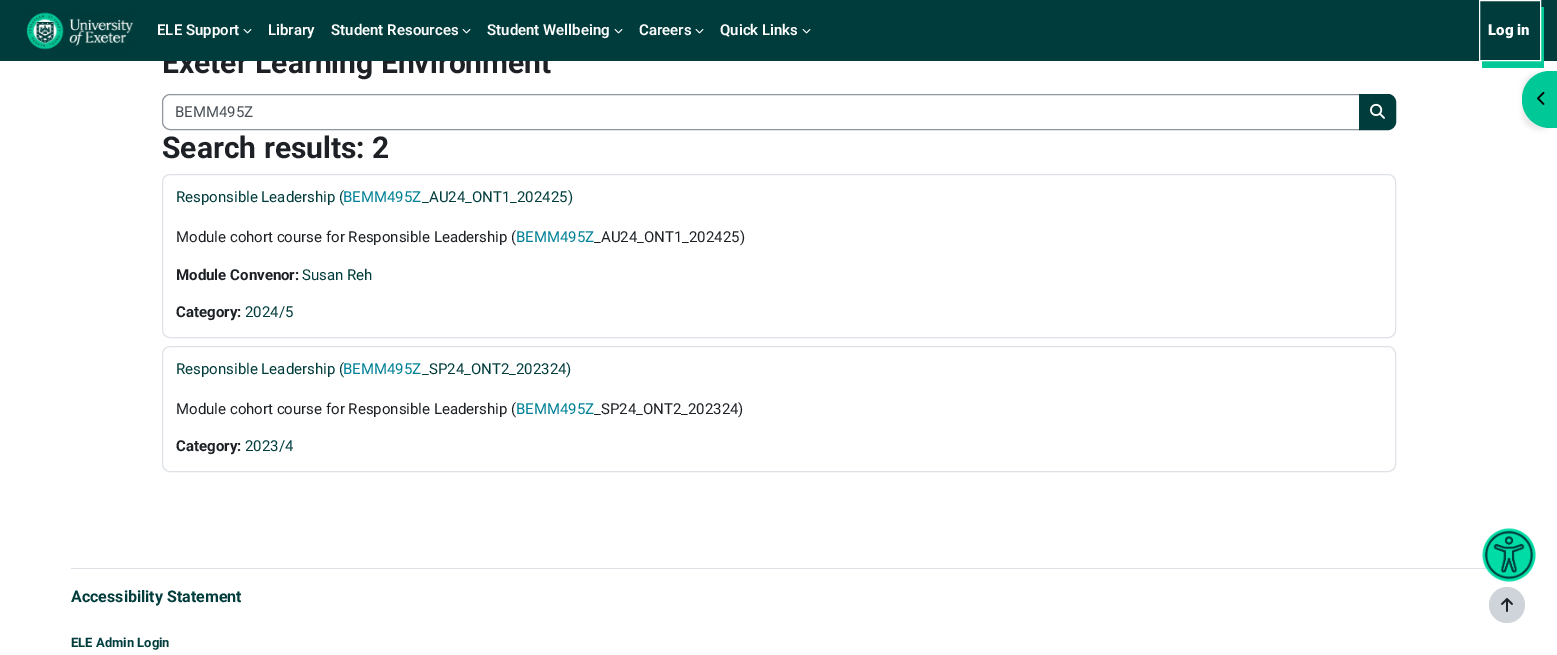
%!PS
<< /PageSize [1557 655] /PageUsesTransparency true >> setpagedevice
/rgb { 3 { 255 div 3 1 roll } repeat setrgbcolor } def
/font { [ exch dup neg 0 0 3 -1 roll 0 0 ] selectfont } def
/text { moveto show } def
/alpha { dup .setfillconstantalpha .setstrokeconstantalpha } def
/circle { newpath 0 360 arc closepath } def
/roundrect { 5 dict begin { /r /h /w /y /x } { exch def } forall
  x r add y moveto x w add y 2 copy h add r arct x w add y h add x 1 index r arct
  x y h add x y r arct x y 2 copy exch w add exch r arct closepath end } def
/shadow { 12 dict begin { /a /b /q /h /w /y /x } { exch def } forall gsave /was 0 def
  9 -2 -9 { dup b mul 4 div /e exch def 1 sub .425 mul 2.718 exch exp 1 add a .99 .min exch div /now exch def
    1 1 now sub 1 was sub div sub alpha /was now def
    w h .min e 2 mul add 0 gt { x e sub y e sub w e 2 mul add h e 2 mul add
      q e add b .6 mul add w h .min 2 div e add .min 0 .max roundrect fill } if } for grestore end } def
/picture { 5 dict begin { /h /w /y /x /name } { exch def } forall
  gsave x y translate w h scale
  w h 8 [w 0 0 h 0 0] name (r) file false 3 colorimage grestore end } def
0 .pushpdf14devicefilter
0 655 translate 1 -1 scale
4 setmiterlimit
255 255 255 rgb
0 0 1557 655 rectfill
0 0 0 rgb
1522 73 35 57 28 2 0.07 shadow
0 200 150 rgb
1550 71 moveto 7 0 rlineto 0 57 rlineto -7 0 rlineto -15.5 0 -28 -12.5 -28 -28 rcurveto 0 -1 rlineto 0 -15.5 12.5 -28 28 -28 rcurveto closepath fill
(img_03.rgb) 1537 91 8 14 picture
143 149 158 rgb
170 94.5 moveto 1189.5 0 rlineto 0 35 rlineto -1189.5 0 rlineto -4 0 -7.5 -3.5 -7.5 -7.5 rcurveto 0 -20 rlineto 0 -4 3.5 -7.5 7.5 -7.5 rcurveto closepath stroke
0 60 60 rgb
1359.5 94.5 moveto 28.5 0 rlineto 4 0 7.5 3.5 7.5 7.5 rcurveto 0 20 rlineto 0 4 -3.5 7.5 -7.5 7.5 rcurveto -28.5 0 rlineto closepath gsave fill grestore
stroke
(img_04.rgb) 1370 103 15 16 picture
222 226 230 rgb
162.5 174.5 1233 163 7.5 roundrect stroke
162.5 346.5 1233 125 7.5 roundrect stroke
71 568 1415 1 rectfill
206 212 218 rgb
1507 605 18 circle fill
(img_05.rgb) 1501 598 12 14 picture
(img_06.rgb) 1482 528 54 54 picture
/Roboto-Bold 30 font
29 33 37 rgb
(Exeter Learning Environment) 162 73 text
0 60 60 rgb
0 0 1557 61 rectfill
(img_02.rgb) 802 29 9 5 picture
/Roboto-SemiBold 15 font
255 255 255 rgb
(Quick Links) 720 35 text
(img_02.rgb) 695 29 9 5 picture
(Careers) 639 35 text
(img_02.rgb) 614 29 9 5 picture
(Student Wellbeing) 487 35 text
(img_02.rgb) 462 29 9 5 picture
(Student Resources) 331 35 text
(img_02.rgb) 243 29 9 5 picture
(ELE Support) 157 35 text
0 200 150 rgb
1482 61 moveto 0 7 rlineto 62 0 rlineto 0 -61 rlineto -3 0 rlineto 0 54 rlineto closepath fill
255 255 255 rgb
1479.5 0.5 61 60 rectstroke
/Roboto-Black 15 font
(Log in) 1488 35 text
/Roboto-SemiBold 15 font
(Library) 268 35 text
(img_01.rgb) 26 12 108 38 picture
/Roboto-Regular 15 font
73 80 87 rgb
(BEMM495Z) 175 117 text
/Roboto-Bold 30 font
29 33 37 rgb
(Search results: 2) 162 158 text
/Roboto-Regular 15 font
0 60 60 rgb
(Responsible Leadership \() 176 202 text
0 129 150 rgb
(BEMM495Z) 343 202 text
0 60 60 rgb
(_AU24_ONT1_202425\)) 422 202 text
29 33 37 rgb
(Module cohort course for Responsible Leadership \() 176 242 text
0 129 150 rgb
(BEMM495Z) 516 242 text
29 33 37 rgb
(_AU24_ONT1_202425\)) 594 242 text
/Roboto-Bold 15 font
(Module Convenor:) 176 280 text
/Roboto-Regular 15 font
0 60 60 rgb
(Susan Reh) 302 280 text
/Roboto-Bold 15 font
29 33 37 rgb
(Category:) 176 317 text
/Roboto-Regular 15 font
0 60 60 rgb
(2024/5) 245 317 text
(Responsible Leadership \() 176 374 text
0 129 150 rgb
(BEMM495Z) 343 374 text
0 60 60 rgb
(_SP24_ONT2_202324\)) 422 374 text
29 33 37 rgb
(Module cohort course for Responsible Leadership \() 176 414 text
0 129 150 rgb
(BEMM495Z) 516 414 text
29 33 37 rgb
(_SP24_ONT2_202324\)) 594 414 text
/Roboto-Bold 15 font
(Category:) 176 451 text
/Roboto-Regular 15 font
0 60 60 rgb
(2023/4) 245 451 text
/Roboto-Bold 16 font
(Accessibility Statement) 71 602 text
/Roboto-Bold 13 font
(ELE Admin Login) 71 647 text
.poppdf14devicefilter showpage
